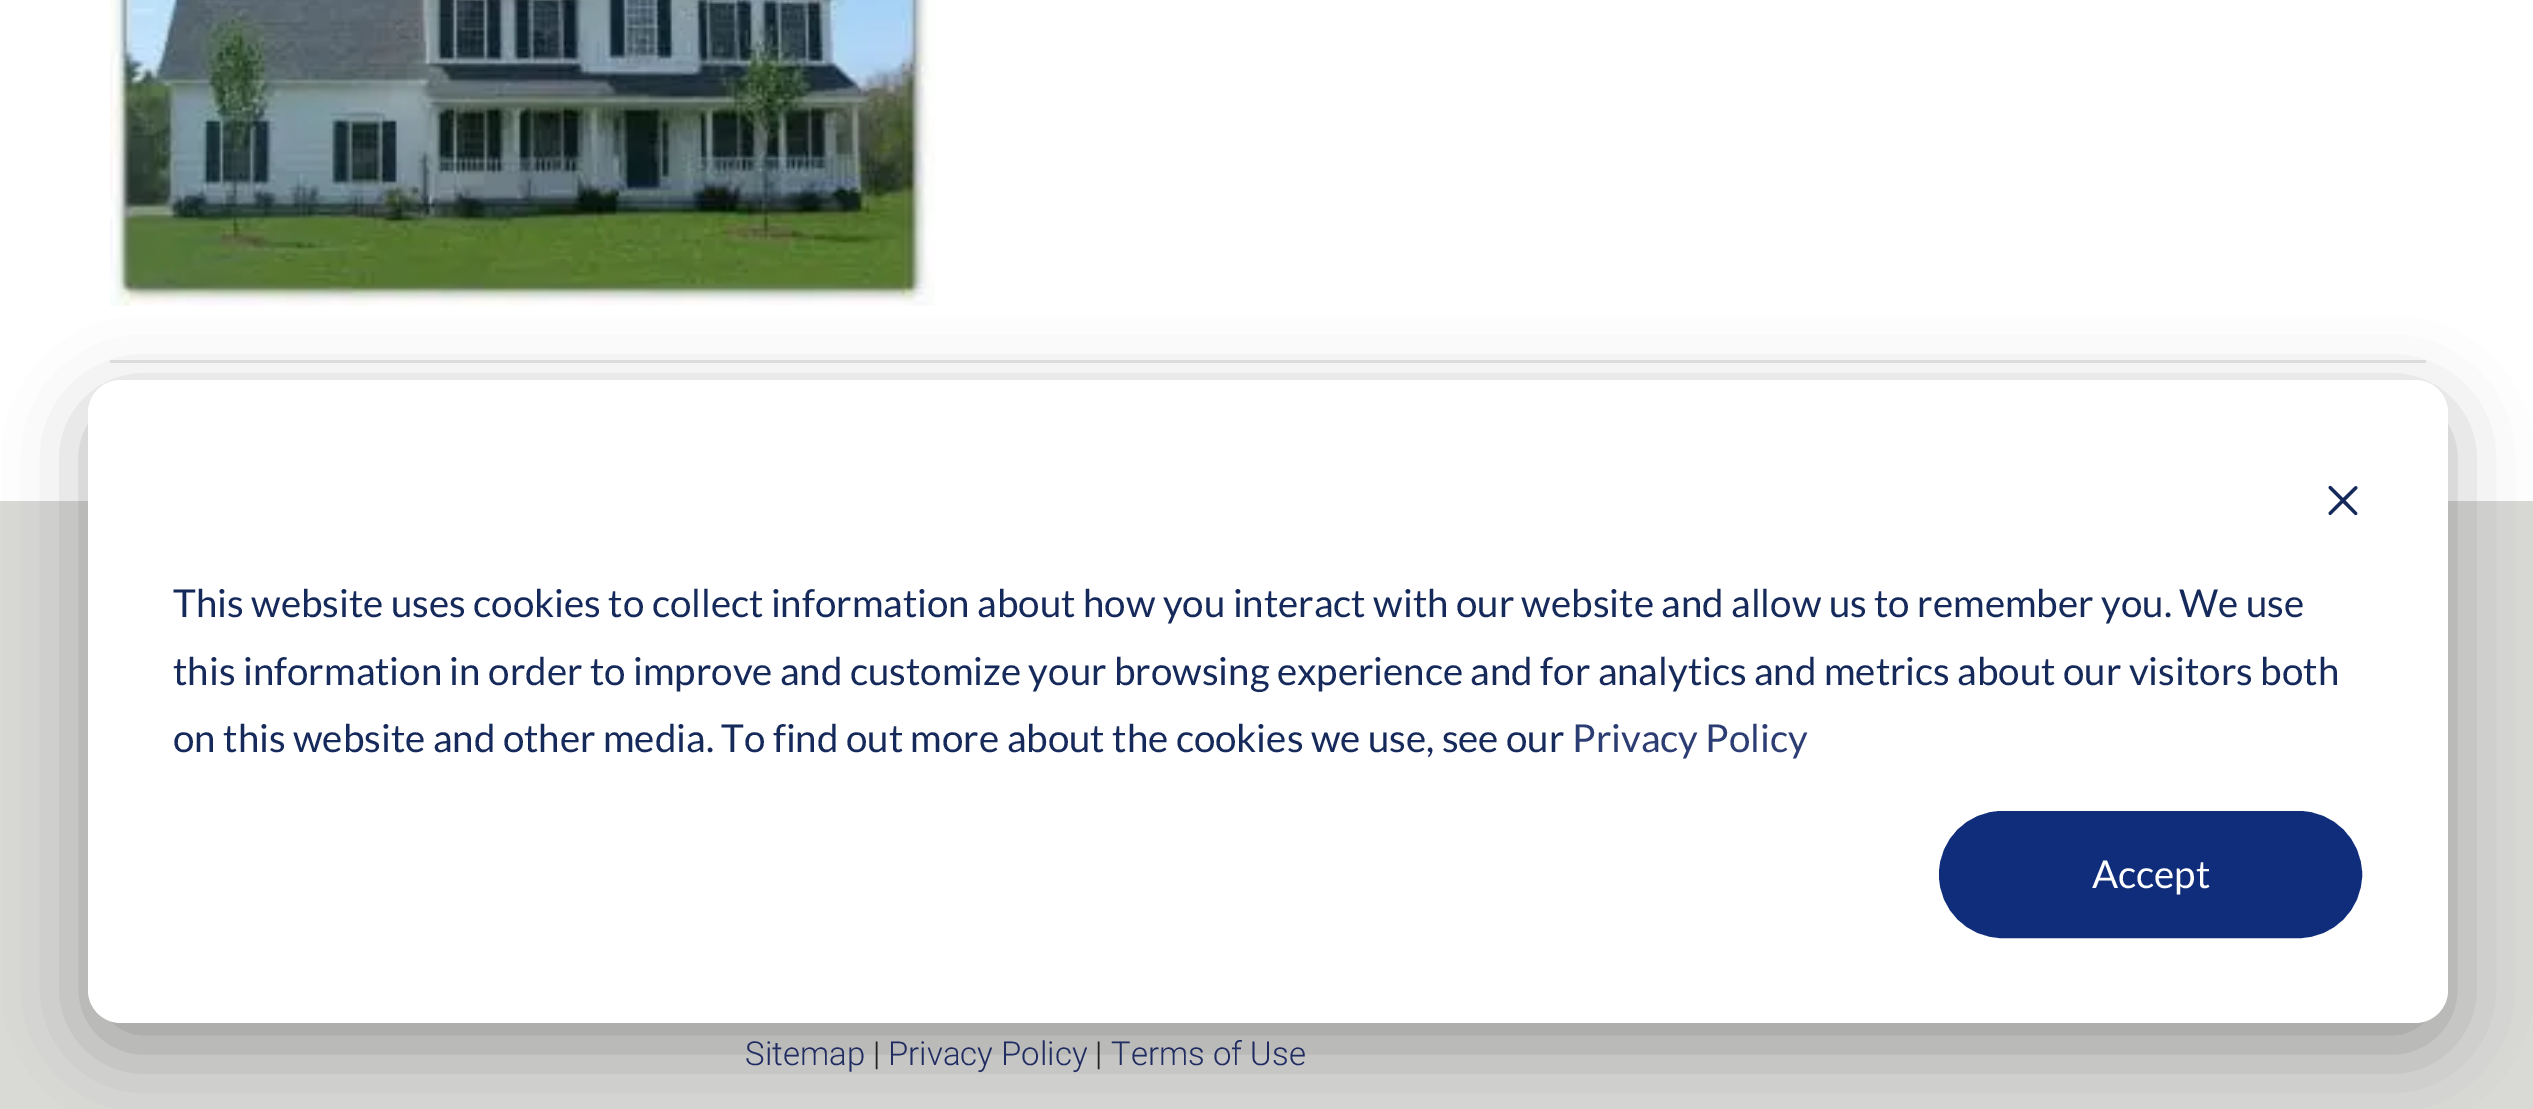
%!PS
<< /PageSize [2533 1109] /PageUsesTransparency true >> setpagedevice
/rgb { 3 { 255 div 3 1 roll } repeat setrgbcolor } def
/font { [ exch dup neg 0 0 3 -1 roll 0 0 ] selectfont } def
/text { moveto show } def
/alpha { dup .setfillconstantalpha .setstrokeconstantalpha } def
/roundrect { 5 dict begin { /r /h /w /y /x } { exch def } forall
  x r add y moveto x w add y 2 copy h add r arct x w add y h add x 1 index r arct
  x y h add x y r arct x y 2 copy exch w add exch r arct closepath end } def
/shadow { 12 dict begin { /a /b /q /h /w /y /x } { exch def } forall gsave /was 0 def
  9 -2 -9 { dup b mul 4 div /e exch def 1 sub .425 mul 2.718 exch exp 1 add a .99 .min exch div /now exch def
    1 1 now sub 1 was sub div sub alpha /was now def
    w h .min e 2 mul add 0 gt { x e sub y e sub w e 2 mul add h e 2 mul add
      q e add b .6 mul add w h .min 2 div e add .min 0 .max roundrect fill } if } for grestore end } def
/picture { 5 dict begin { /h /w /y /x /name } { exch def } forall
  gsave x y translate w h scale
  w h 8 [w 0 0 h 0 0] name (r) file false 3 colorimage grestore end } def
0 .pushpdf14devicefilter
0 1109 translate 1 -1 scale
4 setmiterlimit
255 255 255 rgb
0 0 2533 1109 rectfill
(img_02.rgb) 110 0 825 306 picture
230 230 230 rgb
110 360 2316 3 rectfill
217 217 214 rgb
0 501 2533 608 rectfill
0 0 0 rgb
88 402 2360 643 33 38.5 0.28 shadow
255 255 255 rgb
88 380 2360 643 33 roundrect fill
(img_01.rgb) 2328 485 30 31 picture
16 45 123 rgb
1940.5 812.5 420 124 62 roundrect gsave fill grestore
3 setlinewidth
stroke
/Lato-Regular 38.5 font
21 41 90 rgb
(This website uses cookies to collect information about how you interact with our website and allow us to remember you. We use) 173 617 text
(this information in order to improve and customize your browsing experience and for analytics and metrics about our visitors both) 173 685 text
(on this website and other media. To find out more about the cookies we use, see our) 173 752 text
44 61 116 rgb
(Privacy Policy) 1572 752 text
255 255 255 rgb
(Accept) 2092 888 text
/Roboto-Light 33 font
32 44 97 rgb
(Sitemap) 745 1065 text
33 35 34 rgb
(|) 873 1065 text
32 44 97 rgb
(Privacy Policy) 888 1065 text
33 35 34 rgb
(|) 1095 1065 text
32 44 97 rgb
(Terms of Use) 1111 1065 text
.poppdf14devicefilter showpage
